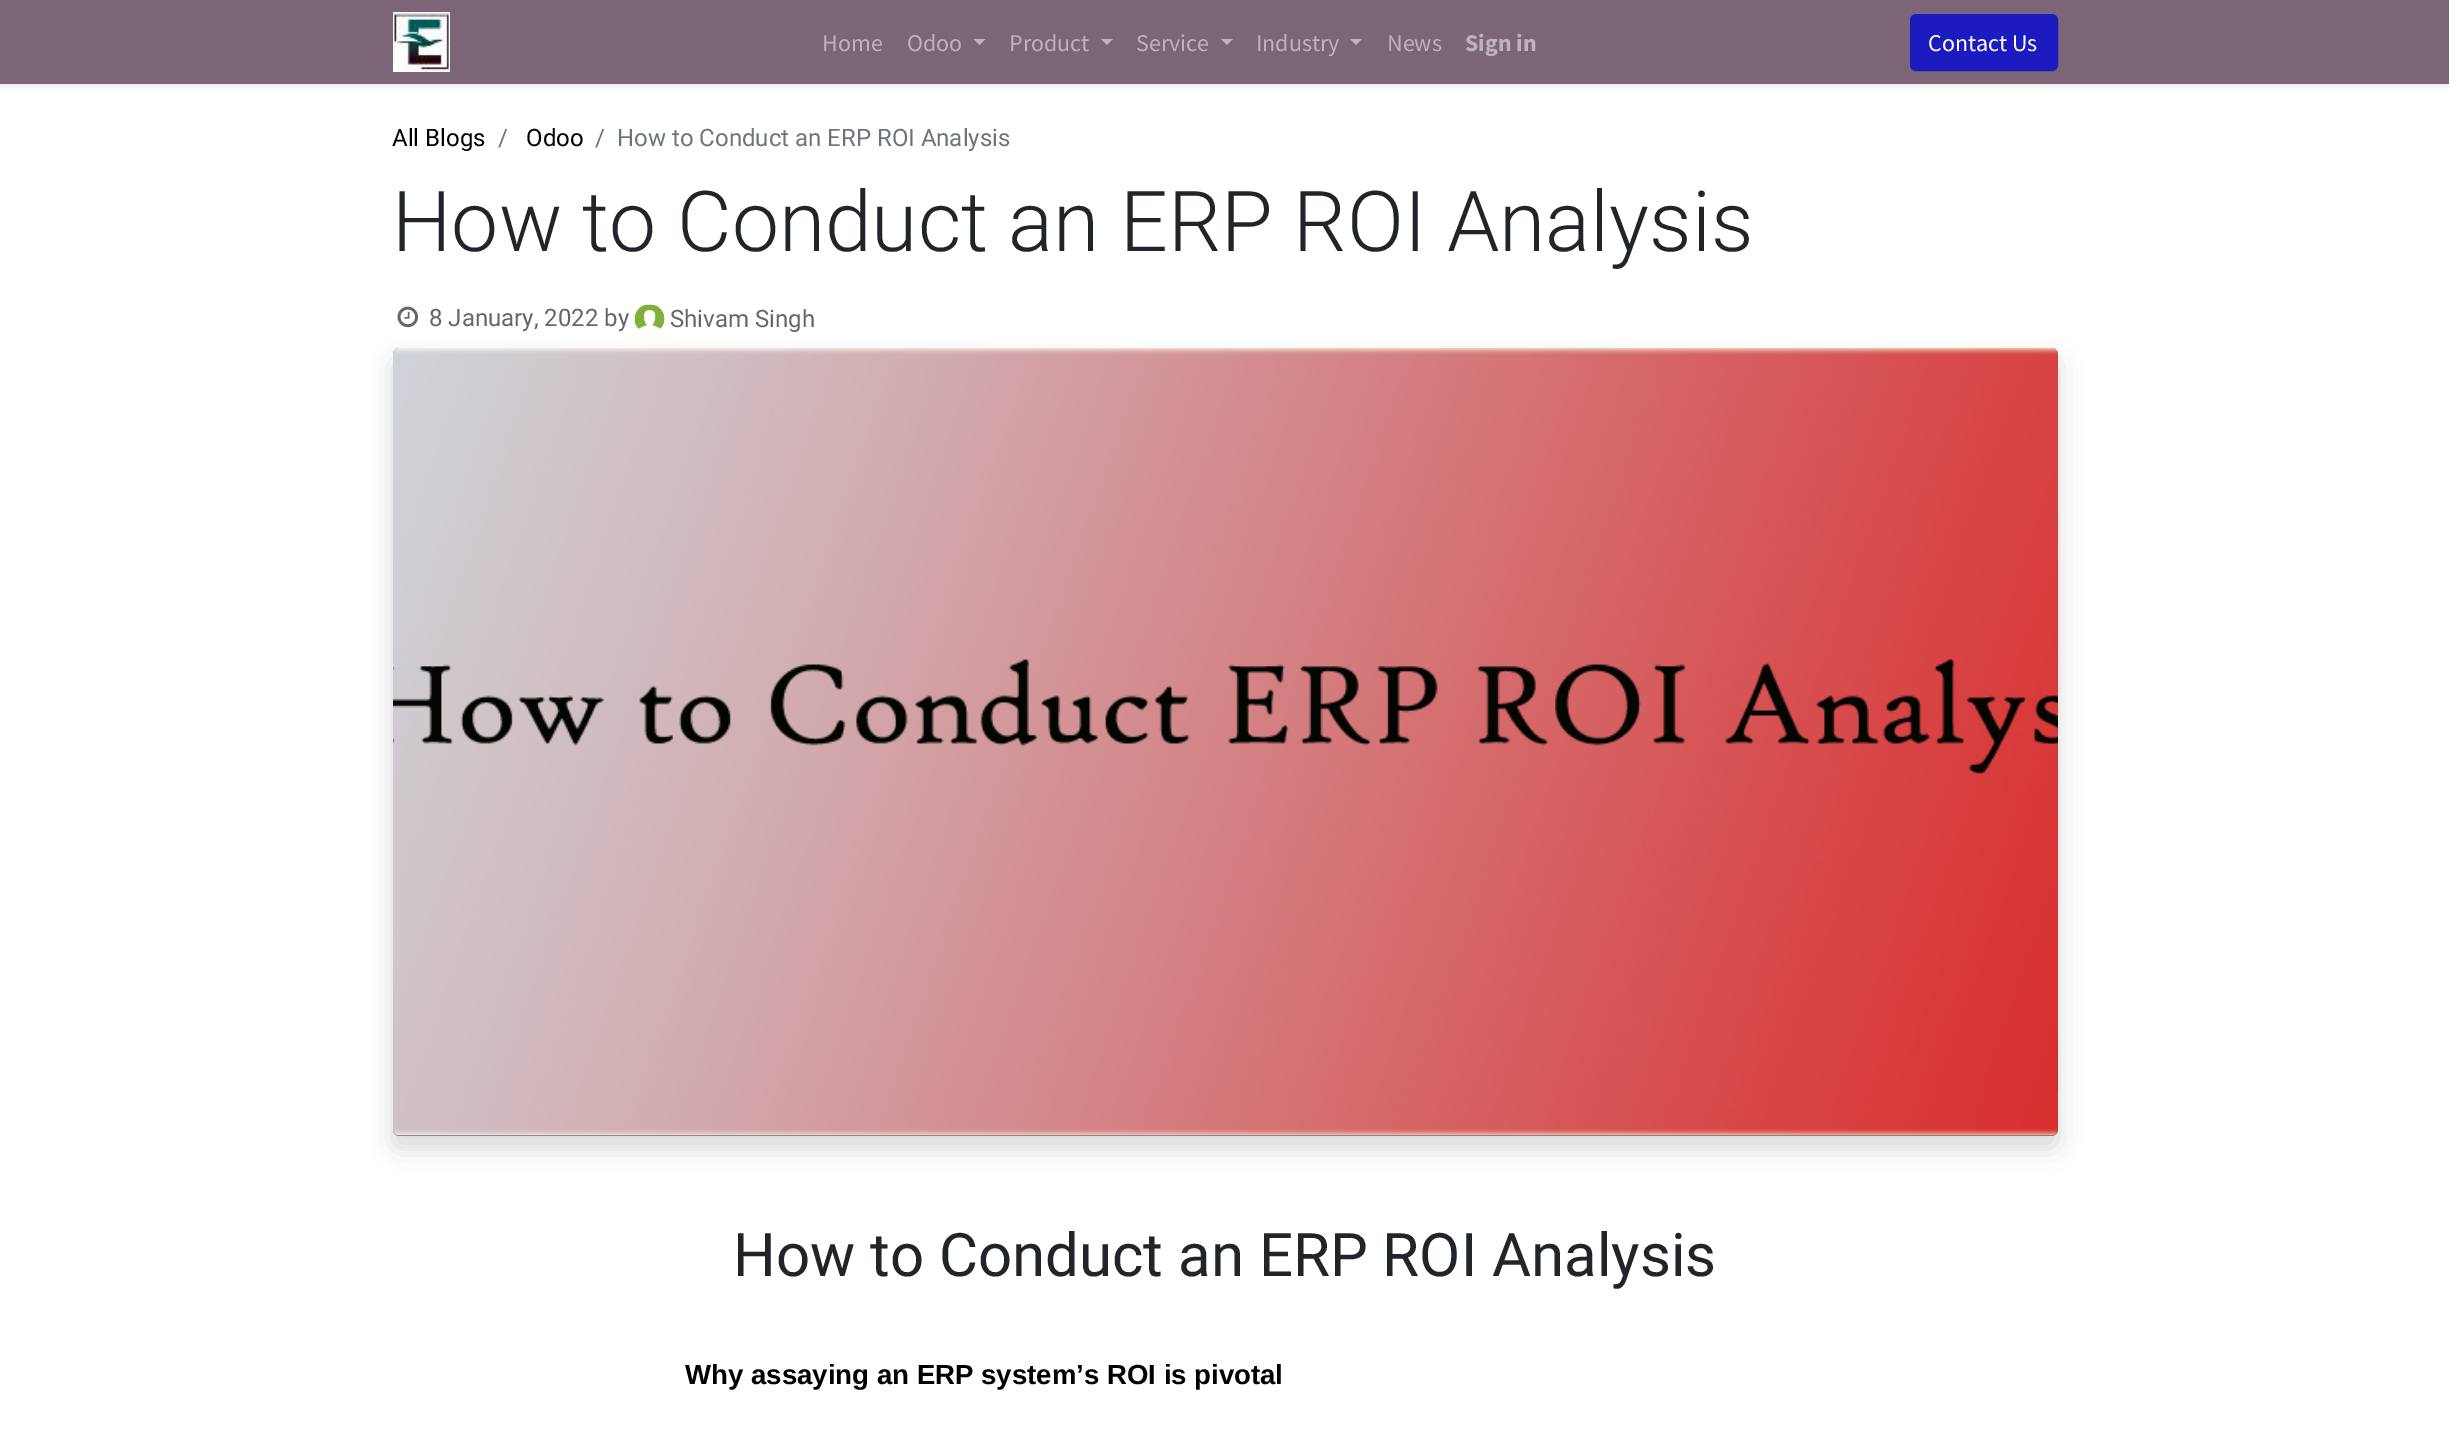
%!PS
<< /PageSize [2449 1430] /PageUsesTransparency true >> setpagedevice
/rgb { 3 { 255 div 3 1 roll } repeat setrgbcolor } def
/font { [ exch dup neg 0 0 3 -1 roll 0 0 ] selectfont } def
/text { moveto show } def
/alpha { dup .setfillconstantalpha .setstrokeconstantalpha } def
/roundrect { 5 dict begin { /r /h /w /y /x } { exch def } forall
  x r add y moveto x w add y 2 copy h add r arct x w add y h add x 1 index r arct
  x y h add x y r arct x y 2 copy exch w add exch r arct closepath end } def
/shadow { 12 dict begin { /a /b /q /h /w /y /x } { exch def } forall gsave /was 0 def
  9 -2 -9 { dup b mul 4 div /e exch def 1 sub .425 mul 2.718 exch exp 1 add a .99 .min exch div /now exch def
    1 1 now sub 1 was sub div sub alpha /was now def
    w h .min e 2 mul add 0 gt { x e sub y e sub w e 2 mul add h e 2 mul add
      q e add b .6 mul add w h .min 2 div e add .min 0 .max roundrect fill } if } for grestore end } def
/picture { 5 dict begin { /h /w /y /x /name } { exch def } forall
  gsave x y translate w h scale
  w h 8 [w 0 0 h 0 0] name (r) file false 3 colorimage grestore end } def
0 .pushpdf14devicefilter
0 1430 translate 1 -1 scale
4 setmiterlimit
255 255 255 rgb
0 0 2449 1430 rectfill
0 0 0 rgb
0 3 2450 84 0 3 0.07 shadow
124 101 118 rgb
0 0 2449 84 rectfill
(img_01.rgb) 393 12 57 60 picture
190 178 187 rgb
973.5 39 moveto 12 0 rlineto -6 6 rlineto closepath fill
1101 39 moveto 12 0 rlineto -6 6 rlineto closepath fill
1221 39 moveto 12 0 rlineto -6 6 rlineto closepath fill
1350 39 moveto 12 0 rlineto -6 6 rlineto closepath fill
27 27 191 rgb
1911 15 146 55 5 roundrect gsave fill grestore
2 setlinewidth
stroke
(img_02.rgb) 397 306 22 22 picture
(img_03.rgb) 634 304 31 25 picture
0 0 0 rgb
393 360 1665 788 6 12 0.15 shadow
124 101 118 rgb
393 348 1665 788 6 roundrect fill
(img_04.rgb) 393 348 1665 788 picture
/SourceSansPro-Regular 24 font
190 178 187 rgb
(Home) 822 51 text
(Odoo) 907 51 text
(Product) 1009 51 text
(Service) 1136 51 text
(Industry) 1256 51 text
(News) 1387 51 text
/SourceSansPro-Bold 24 font
(Sign in) 1465 51 text
/SourceSansPro-Regular 24 font
255 255 255 rgb
(Contact Us) 1928 51 text
/Roboto-Regular 24 font
0 0 0 rgb
(All Blogs) 392 146 text
108 117 125 rgb
(/) 498 146 text
0 0 0 rgb
(Odoo) 526 146 text
108 117 125 rgb
(/) 595 146 text
(How to Conduct an ERP ROI Analysis) 617 146 text
/Roboto-Light 84 font
33 37 41 rgb
(How to Conduct an ERP ROI Analysis) 392 251 text
/Roboto-Regular 24 font
100 102 105 rgb
(8 January, 2022 by) 429 326 text
(Shivam Singh) 670 327 text
/Roboto-Regular 60 font
33 37 41 rgb
(How to Conduct an ERP ROI Analysis) 733 1276 text
/LiberationSans-Bold 27.6 font
0 0 0 rgb
(Why assaying an ERP system’s ROI is pivotal) 685 1384 text
.poppdf14devicefilter showpage
